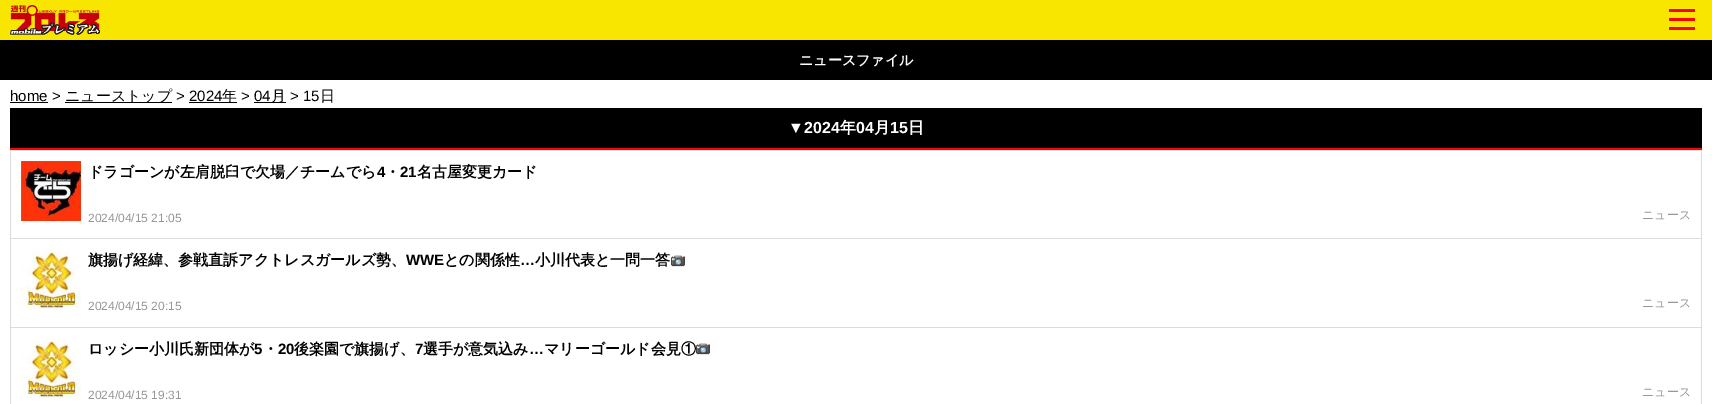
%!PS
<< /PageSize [1712 404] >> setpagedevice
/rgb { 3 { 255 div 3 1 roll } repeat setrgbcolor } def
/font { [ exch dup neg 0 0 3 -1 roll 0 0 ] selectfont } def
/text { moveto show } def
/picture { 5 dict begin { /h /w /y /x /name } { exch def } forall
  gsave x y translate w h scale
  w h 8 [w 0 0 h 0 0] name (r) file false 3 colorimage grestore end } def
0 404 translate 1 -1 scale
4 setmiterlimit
255 255 255 rgb
0 0 1712 404 rectfill
249 230 0 rgb
0 0 1712 40 rectfill
255 0 0 rgb
1669 9 26 3 rectfill
1669 18 26 3 rectfill
1669 27 26 3 rectfill
(img_01.rgb) 10 5 90 30 picture
0 0 0 rgb
0 40 1712 40 rectfill
10 102 38 1 rectfill
65 102 107 1 rectfill
189 102 48 1 rectfill
254 102 32 1 rectfill
10 108 1692 40 rectfill
255 0 0 rgb
10 148 1692 2 rectfill
220 220 220 rgb
10 150 1692 1 rectfill
1701 151 1 253 rectfill
10 238 1692 1 rectfill
10 151 1 88 rectfill
(img_02.rgb) 21 161 60 60 picture
10 327 1692 1 rectfill
10 239 1 165 rectfill
(img_03.rgb) 21 249 60 60 picture
(img_04.rgb) 671 255 14 12 picture
(img_05.rgb) 21 338 60 60 picture
(img_04.rgb) 696 343 14 12 picture
/WenQuanYiZenHei-Bold 14 font
255 255 255 rgb
(ニュースファイル) 799 65 text
/LiberationSans-Regular 15 font
0 0 0 rgb
(home >) 10 101 text
/WenQuanYiZenHei-Medium 15 font
(ニューストップ) 65 101 text
/LiberationSans-Regular 15 font
(> 2024) 176 101 text
/WenQuanYiZenHei-Medium 15 font
(年) 222 101 text
/LiberationSans-Regular 15 font
(> 04) 241 101 text
/WenQuanYiZenHei-Medium 15 font
(月) 271 101 text
/LiberationSans-Regular 15 font
(> 15) 290 101 text
/WenQuanYiZenHei-Medium 15 font
(日) 320 101 text
/LiberationSans-Bold 16 font
255 255 255 rgb
(▼2024) 788 133 text
/WenQuanYiZenHei-Bold 16 font
(年) 840 133 text
/LiberationSans-Bold 16 font
(04) 856 133 text
/WenQuanYiZenHei-Bold 16 font
(月) 874 133 text
/LiberationSans-Bold 16 font
(15) 890 133 text
/WenQuanYiZenHei-Bold 16 font
(日) 908 133 text
/WenQuanYiZenHei-Bold 15 font
0 0 0 rgb
(ドラゴーンが左肩脱臼で欠場／チームでら) 88 177 text
/LiberationSans-Bold 15 font
(4) 377 177 text
/WenQuanYiZenHei-Bold 15 font
(・) 385 177 text
/LiberationSans-Bold 15 font
(21) 400 177 text
/WenQuanYiZenHei-Bold 15 font
(名古屋変更カード) 417 177 text
/LiberationSans-Regular 12 font
151 151 151 rgb
(2024/04/15 21:05) 88 222 text
/WenQuanYiZenHei-Medium 12 font
(ニュース) 1642 219 text
/WenQuanYiZenHei-Bold 15 font
0 0 0 rgb
(旗揚げ経緯、参戦直訴アクトレスガールズ勢、) 88 265 text
/LiberationSans-Bold 15 font
(WWE) 406 265 text
/WenQuanYiZenHei-Bold 15 font
(との関係性) 444 265 text
/LiberationSans-Bold 15 font
(…) 520 265 text
/WenQuanYiZenHei-Bold 15 font
(小川代表と一問一答) 535 265 text
/LiberationSans-Regular 12 font
151 151 151 rgb
(2024/04/15 20:15) 88 310 text
/WenQuanYiZenHei-Medium 12 font
(ニュース) 1642 307 text
/WenQuanYiZenHei-Bold 15 font
0 0 0 rgb
(ロッシー小川氏新団体が) 88 354 text
/LiberationSans-Bold 15 font
(5) 254 354 text
/WenQuanYiZenHei-Bold 15 font
(・) 263 354 text
/LiberationSans-Bold 15 font
(20) 278 354 text
/WenQuanYiZenHei-Bold 15 font
(後楽園で旗揚げ、) 294 354 text
/LiberationSans-Bold 15 font
(7) 415 354 text
/WenQuanYiZenHei-Bold 15 font
(選手が意気込み) 423 354 text
(マリーゴールド会見①) 544 354 text
/LiberationSans-Bold 15 font
(…) 529 354 text
/LiberationSans-Regular 12 font
151 151 151 rgb
(2024/04/15 19:31) 88 399 text
/WenQuanYiZenHei-Medium 12 font
(ニュース) 1642 396 text
showpage
